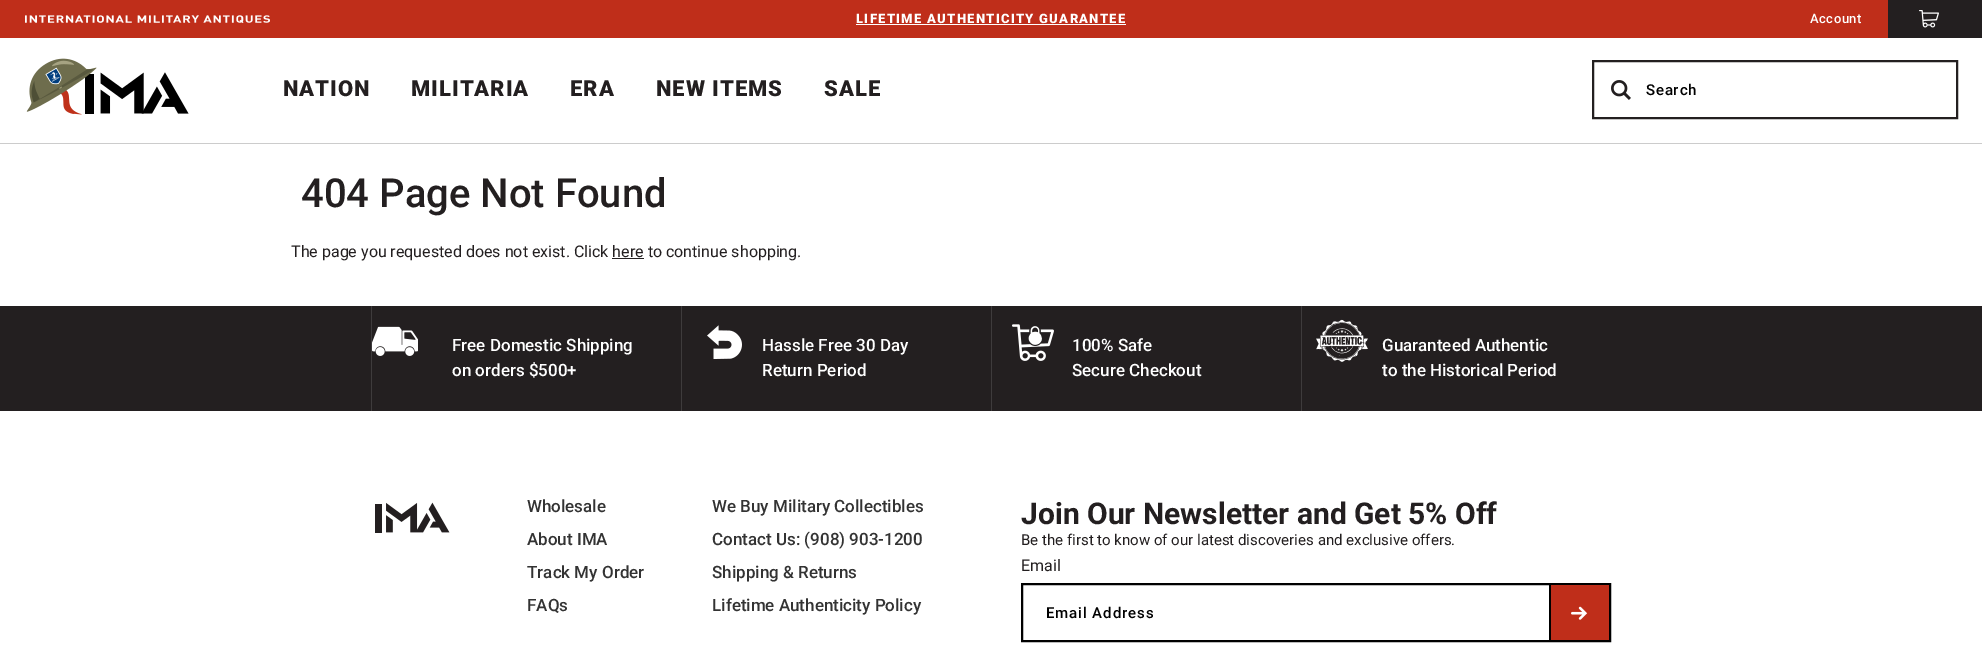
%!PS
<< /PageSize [1982 656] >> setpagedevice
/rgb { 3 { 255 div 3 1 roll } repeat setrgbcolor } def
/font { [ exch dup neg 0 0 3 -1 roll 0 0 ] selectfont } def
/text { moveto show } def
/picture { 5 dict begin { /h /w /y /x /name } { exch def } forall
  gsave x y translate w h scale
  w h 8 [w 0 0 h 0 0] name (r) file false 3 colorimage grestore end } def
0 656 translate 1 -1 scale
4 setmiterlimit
255 255 255 rgb
0 0 1982 656 rectfill
204 204 204 rgb
0 143 1982 1 rectfill
191 46 26 rgb
0 0 1888 38 rectfill
(img_01.rgb) 25 15 245 8 picture
255 255 255 rgb
856 24 270 1 rectfill
35 31 32 rgb
1888 0 94 38 rectfill
(img_02.rgb) 1919 10 20 18 picture
(img_03.rgb) 26 58 163 57 picture
2 setlinewidth
1593 61 364 57 rectstroke
(img_04.rgb) 1611 80 20 20 picture
612 258 32 1 rectfill
0 306 1982 105 rectfill
62 59 60 rgb
371 306 1 105 rectfill
(img_05.rgb) 372 326 46 30 picture
681 306 1 105 rectfill
(img_06.rgb) 707 325 35 34 picture
991 306 1 105 rectfill
(img_07.rgb) 1012 324 42 37 picture
1301 306 1 105 rectfill
(img_08.rgb) 1316 319 52 43 picture
(img_09.rgb) 375 502 75 31 picture
0 0 0 rgb
1022 584 588 57 rectstroke
191 46 26 rgb
1551 585 58 55 rectfill
0 0 0 rgb
1549 585 2 55 rectfill
(img_10.rgb) 1571 606 17 14 picture
/Roboto-Black 13 font
255 255 255 rgb
856 23 moveto 1.3 0 (LIFETIME AUTHENTICITY GUARANTEE) ashow
/Roboto-Medium 13 font
1810 23 moveto 0.5 0 (Account) ashow
/Roboto-Black 22 font
35 31 32 rgb
283 96 moveto 1 0 (NATION) ashow
411 96 moveto 1 0 (MILITARIA) ashow
570 96 moveto 1 0 (ERA) ashow
656 96 moveto 1 0 (NEW ITEMS) ashow
824 96 moveto 1 0 (SALE) ashow
/Roboto-Medium 15 font
0 0 0 rgb
1646 95 moveto 0.75 0 (Search) ashow
/Roboto-Medium 40 font
35 31 32 rgb
(404 Page Not Found) 301 207 text
/Roboto-Regular 16 font
(The page you requested does not exist. Click here to continue shopping.) 291 257 text
/Roboto-Medium 17 font
255 255 255 rgb
(Free Domestic Shipping) 452 351 text
(on orders $500+) 452 376 text
(Hassle Free 30 Day) 762 351 text
(Return Period) 762 376 text
(100% Safe) 1072 351 text
(Secure Checkout) 1072 376 text
(Guaranteed Authentic) 1382 351 text
(to the Historical Period) 1382 376 text
51 51 51 rgb
(Wholesale) 527 512 text
(We Buy Military Collectibles) 712 512 text
(About IMA) 527 545 text
(Contact Us: \(908\) 903-1200) 712 545 text
(Track My Order) 527 578 text
(Shipping & Returns) 712 578 text
(FAQs) 527 611 text
(Lifetime Authenticity Policy) 712 611 text
/Roboto-Bold 30 font
35 31 32 rgb
(Join Our Newsletter and Get 5% Off) 1021 524 text
/Roboto-Regular 15 font
(Be the first to know of our latest discoveries and exclusive offers.) 1021 545 text
/Roboto-Regular 16 font
(Email) 1021 571 text
/Roboto-Medium 15 font
0 0 0 rgb
1046 618 moveto 0.9 0 (Email Address) ashow
showpage
